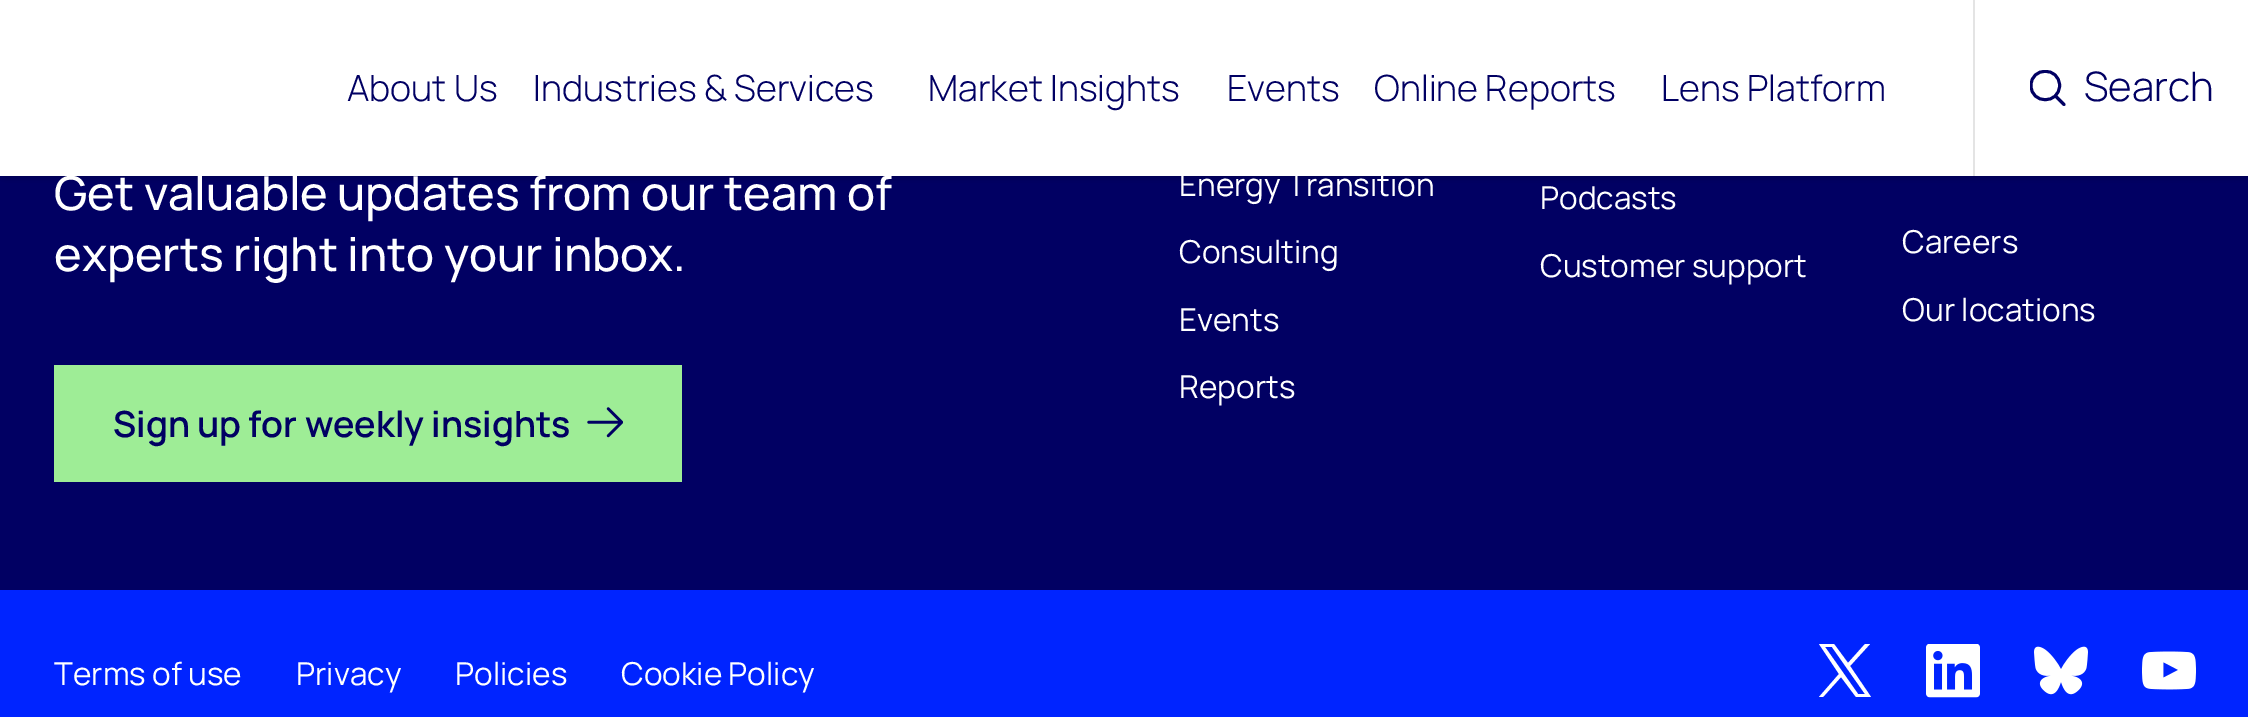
%!PS
<< /PageSize [2248 717] /PageUsesTransparency true >> setpagedevice
/rgb { 3 { 255 div 3 1 roll } repeat setrgbcolor } def
/font { [ exch dup neg 0 0 3 -1 roll 0 0 ] selectfont } def
/text { moveto show } def
/alpha { dup .setfillconstantalpha .setstrokeconstantalpha } def
/roundrect { 5 dict begin { /r /h /w /y /x } { exch def } forall
  x r add y moveto x w add y 2 copy h add r arct x w add y h add x 1 index r arct
  x y h add x y r arct x y 2 copy exch w add exch r arct closepath end } def
/shadow { 12 dict begin { /a /b /q /h /w /y /x } { exch def } forall gsave /was 0 def
  9 -2 -9 { dup b mul 4 div /e exch def 1 sub .425 mul 2.718 exch exp 1 add a .99 .min exch div /now exch def
    1 1 now sub 1 was sub div sub alpha /was now def
    w h .min e 2 mul add 0 gt { x e sub y e sub w e 2 mul add h e 2 mul add
      q e add b .6 mul add w h .min 2 div e add .min 0 .max roundrect fill } if } for grestore end } def
/picture { 5 dict begin { /h /w /y /x /name } { exch def } forall
  gsave x y translate w h scale
  w h 8 [w 0 0 h 0 0] name (r) file false 3 colorimage grestore end } def
0 .pushpdf14devicefilter
0 717 translate 1 -1 scale
4 setmiterlimit
1 0 99 rgb
0 0 2248 717 rectfill
0 0 0 rgb
5 7 2241 166 0 4.5 0.5 shadow
255 255 255 rgb
0 0 2248 176 rectfill
gsave
2030 70 36 36 rectclip
1 0 99 rgb
2.9 setlinewidth
1 setlinecap
1 setlinejoin
2031 85.5 moveto 0 19 28.5 19 28.5 0 rcurveto 0 -19 -28.5 -19 -28.5 0 rcurveto closepath stroke
grestore
gsave
2029.5 70 moveto 36 0 rlineto 0 36 rlineto -36 0 rlineto closepath clip newpath
1 0 99 rgb
2.9 setlinewidth
1 setlinecap
1 setlinejoin
2064 104.5 moveto -8.5 -8.5 rlineto stroke
grestore
228 228 228 rgb
1973 0 2 176 rectfill
158 237 150 rgb
54 365 628 117 rectfill
(img_01.rgb) 587 407 36 31 picture
0 36 255 rgb
0 590 2248 127 rectfill
255 255 255 rgb
1850 666 moveto 20 -22 rlineto -5 0 rlineto -17 19 rlineto -14 -19 rlineto -15 0 rlineto 20 30 rlineto -20 23 rlineto 4 0 rlineto 18 -20 rlineto 15 20 rlineto 15 0 rlineto closepath 1844 674 moveto -19 -27 rlineto 7 0 rlineto 33 47 rlineto -7 0 rlineto closepath fill
(img_02.rgb) 1926 644 54 54 picture
(img_03.rgb) 2034 646 54 49 picture
(img_04.rgb) 2142 651 54 39 picture
/Manrope-Light 36 font
1 0 99 rgb
(About Us) 347 101 text
(Industries & Services) 533 101 text
(Market Insights) 928 101 text
(Events) 1227 101 text
(Online Reports) 1374 101 text
(Lens Platform) 1661 101 text
/Manrope-Light 40.5 font
(Search) 2084 101 text
/Manrope-Medium 46.75 font
255 255 255 rgb
(Get valuable updates from our team of) 54 210 text
(experts right into your inbox.) 54 271 text
/Manrope-SemiBold 36 font
1 0 99 rgb
(Sign up for weekly insights) 113 437 text
/Manrope-Regular 31.5 font
255 255 255 rgb
(Energy Transition) 1179 196 text
(Consulting) 1179 263 text
(Events) 1179 331 text
(Reports) 1179 398 text
(Podcasts) 1540 209 text
(Customer support) 1540 277 text
(Careers) 1902 253 text
(Our locations) 1902 321 text
(Terms of use) 54 685 text
(Privacy) 296 685 text
(Policies) 455 685 text
(Cookie Policy) 621 685 text
.poppdf14devicefilter showpage
